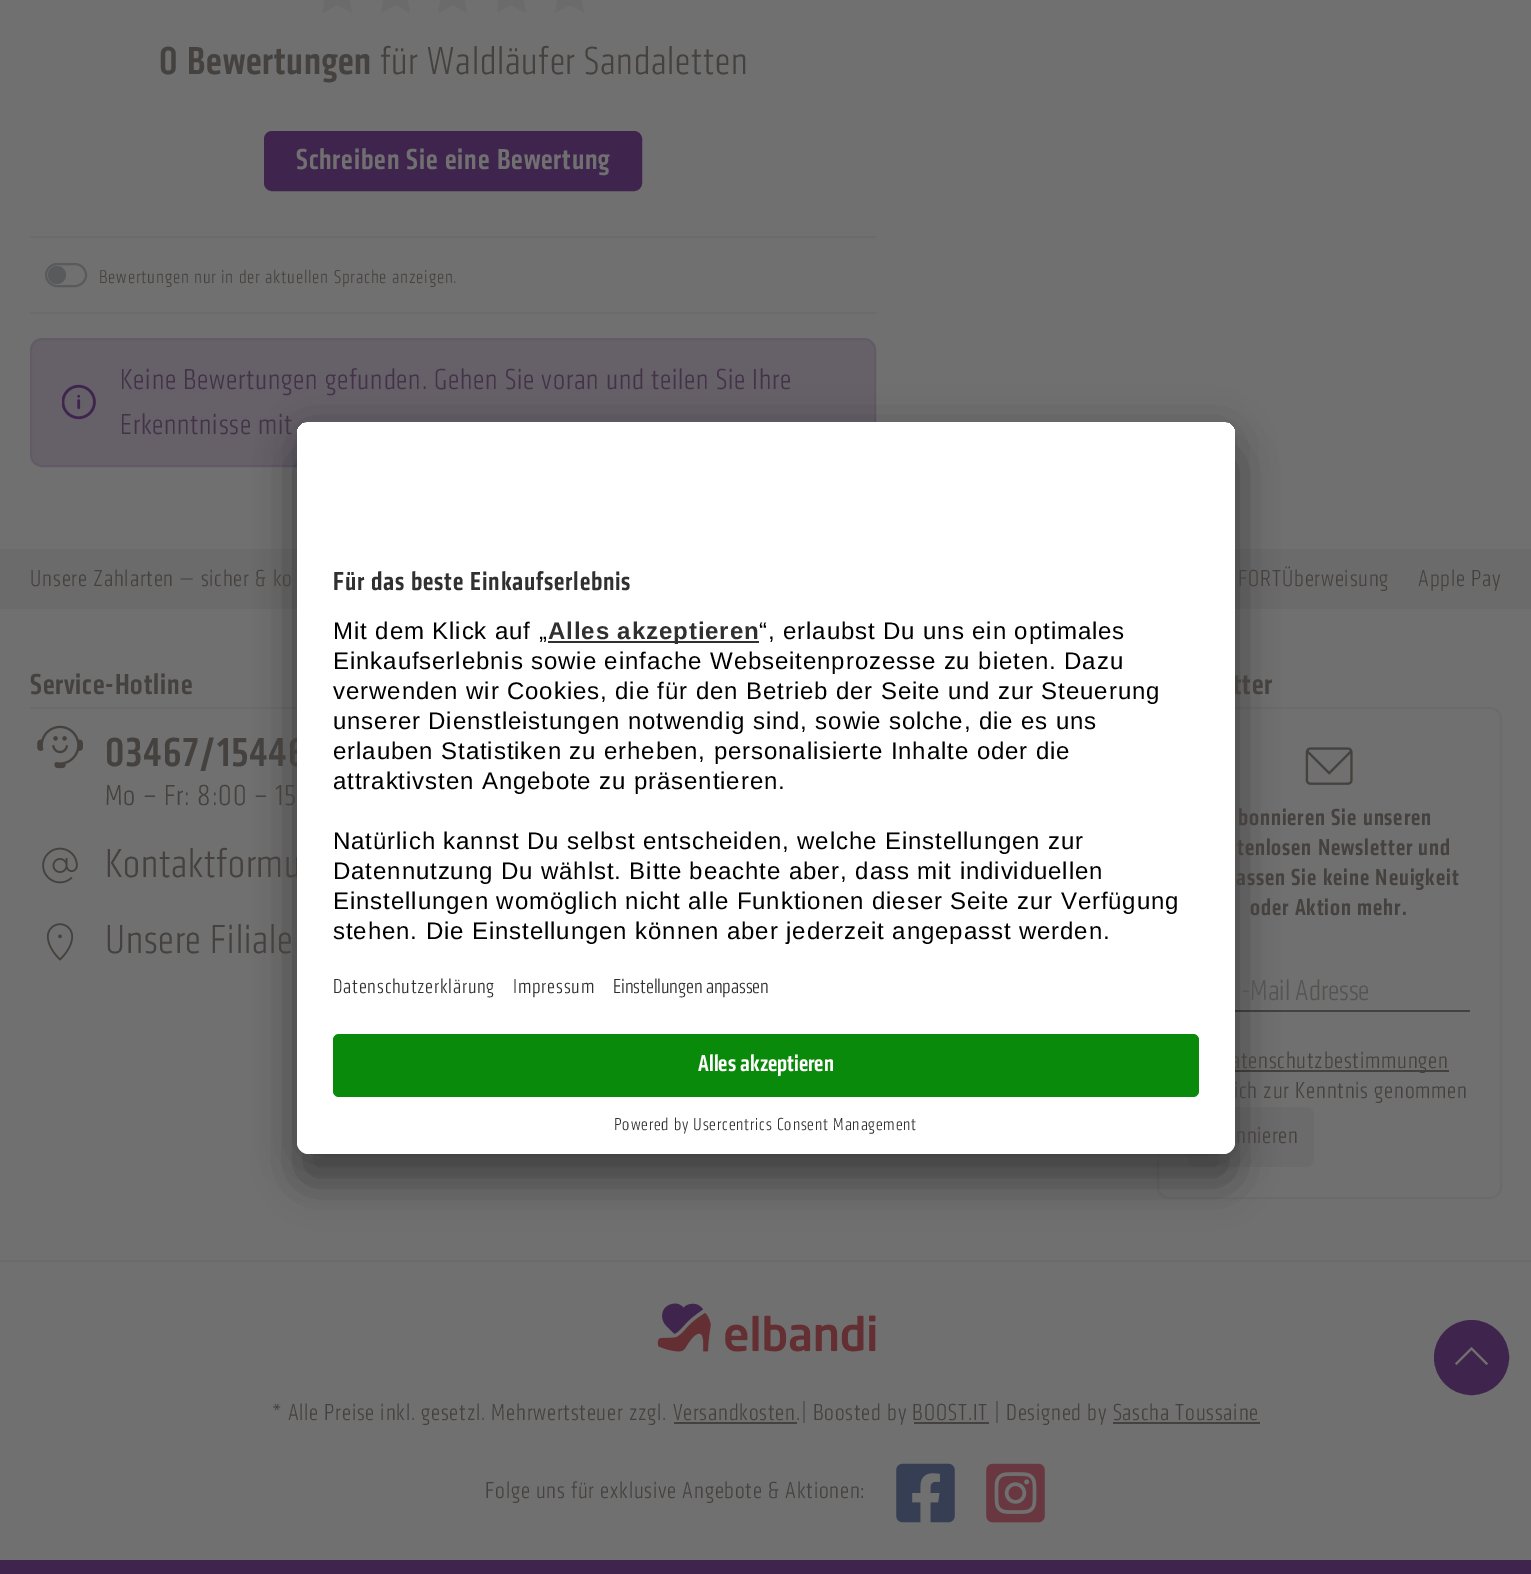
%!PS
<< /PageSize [1531 1574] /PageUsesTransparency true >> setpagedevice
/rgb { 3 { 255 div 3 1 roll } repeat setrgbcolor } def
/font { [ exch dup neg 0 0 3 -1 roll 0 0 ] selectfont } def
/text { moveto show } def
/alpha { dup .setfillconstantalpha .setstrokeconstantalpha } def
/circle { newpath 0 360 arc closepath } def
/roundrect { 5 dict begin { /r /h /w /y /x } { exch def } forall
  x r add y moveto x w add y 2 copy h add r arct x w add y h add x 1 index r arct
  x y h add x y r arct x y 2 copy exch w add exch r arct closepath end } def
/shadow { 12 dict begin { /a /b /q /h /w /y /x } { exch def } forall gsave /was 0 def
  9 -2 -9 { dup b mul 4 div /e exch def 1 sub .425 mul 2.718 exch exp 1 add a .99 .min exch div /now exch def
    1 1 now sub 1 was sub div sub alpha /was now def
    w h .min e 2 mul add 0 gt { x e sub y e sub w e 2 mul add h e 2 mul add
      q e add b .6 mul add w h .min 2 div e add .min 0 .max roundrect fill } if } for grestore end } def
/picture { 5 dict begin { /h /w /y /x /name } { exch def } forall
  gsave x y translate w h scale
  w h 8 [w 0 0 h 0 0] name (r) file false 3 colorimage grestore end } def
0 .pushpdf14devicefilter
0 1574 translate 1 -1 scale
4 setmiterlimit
112 112 112 rgb
0 0 1531 1574 rectfill
108 107 107 rgb
30 236 846 2 rectfill
344 -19 moveto -7 -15 rlineto -7 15 rlineto -16 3 rlineto 11 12 rlineto -2 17 rlineto 14 -8 rlineto 15 8 rlineto -3 -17 rlineto 12 -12 rlineto closepath fill
403 -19 moveto -7 -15 rlineto -8 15 rlineto -16 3 rlineto 12 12 rlineto -3 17 rlineto 15 -8 rlineto 14 8 rlineto -3 -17 rlineto 12 -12 rlineto closepath fill
460 -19 moveto -7 -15 rlineto -8 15 rlineto -16 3 rlineto 12 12 rlineto -3 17 rlineto 15 -8 rlineto 14 8 rlineto -3 -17 rlineto 12 -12 rlineto closepath fill
518 -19 moveto -7 -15 rlineto -7 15 rlineto -16 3 rlineto 11 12 rlineto -2 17 rlineto 14 -8 rlineto 15 8 rlineto -3 -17 rlineto 12 -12 rlineto closepath fill
577 -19 moveto -7 -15 rlineto -8 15 rlineto -16 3 rlineto 12 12 rlineto -3 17 rlineto 15 -8 rlineto 14 8 rlineto -3 -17 rlineto 12 -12 rlineto closepath fill
63 37 78 rgb
265 132 376 58 7 roundrect gsave fill grestore
2 setlinewidth
stroke
88 90 92 rgb
46 264 40 22 11 roundrect stroke
57 275 9 circle fill
108 107 107 rgb
30 312 846 2 rectfill
102 97 105 rgb
31 339 844 127 11 roundrect gsave fill grestore
98 91 103 rgb
stroke
(img_01.rgb) 62 384 34 36 picture
63 37 78 rgb
0 1560 1531 14 rectfill
108 107 107 rgb
0 549 1531 60 rectfill
30 707 267 2 rectfill
(img_02.rgb) 37 725 46 44 picture
(img_03.rgb) 42 847 36 37 picture
(img_04.rgb) 46 923 28 38 picture
1158 708 343 490 11 roundrect stroke
(img_05.rgb) 1305 747 48 38 picture
69 65 62 rgb
1235 1010 235 2 rectfill
1235 1070 214 2 rectfill
108 107 107 rgb
1188 1107 126 60 8 roundrect fill
0 1260 1531 2 rectfill
(img_06.rgb) 657 1303 219 49 picture
69 65 62 rgb
674 1422 123 2 rectfill
914 1422 75 2 rectfill
1113 1422 147 2 rectfill
(img_07.rgb) 896 1463 59 60 picture
(img_08.rgb) 986 1463 59 60 picture
0 0 0 rgb
297 452 938 732 12 21 0.3 shadow
297 429 938 732 12 19.5 0.22 shadow
63 37 78 rgb
1471.5 1357.5 36.5 circle gsave fill grestore
stroke
112 112 112 rgb
1455 1363.5 moveto 16.5 -16.5 rlineto 16.5 16.5 rlineto -1.5 1.5 rlineto -15 -15 rlineto -15 15 rlineto closepath fill
/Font-Medium 40.5 font
69 65 62 rgb
159 74 moveto 0.9 0 (0 Bewertungen) ashow
/Font-Light 40.5 font
380 74 moveto 0.9 0 (für Waldläufer Sandaletten) ashow
/Font-Medium 30 font
112 112 112 rgb
296 169 moveto 0.9 0 (Schreiben Sie eine Bewertung) ashow
/Font-Light 19.25 font
69 65 62 rgb
99 283 moveto 0.9 0 (Bewertungen nur in der aktuellen Sprache anzeigen.) ashow
/Font-Light 30 font
66 51 71 rgb
120 389 moveto 0.9 0 (Keine Bewertungen gefunden. Gehen Sie voran und teilen Sie Ihre) ashow
120 434 moveto 0.9 0 (Erkenntnisse mit) ashow
/Font-Light 24 font
69 65 62 rgb
30 586 moveto 0.9 0 (Unsere Zahlarten — sicher & ko) ashow
1238 586 moveto 0.9 0 (FORTÜberweisung) ashow
1418 586 moveto 0.9 0 (Apple Pay) ashow
/Font-Medium 30 font
30 694 moveto 0.9 0 (Service-Hotline) ashow
/Font-Medium 42 font
105 766 moveto 0.9 0 (03467/15446) ashow
/Font-Light 30 font
105 805 moveto 0.9 0 (Mo – Fr: 8:00 – 15) ashow
/Font-Light 42 font
105 877 moveto 0.9 0 (Kontaktformu) ashow
105 953 moveto 0.9 0 (Unsere Filiale) ashow
/Font-Medium 30 font
1233 694 moveto 0.9 0 (tter) ashow
/Font-Medium 24 font
1238 825 moveto 0.9 0 (bonnieren Sie unseren) ashow
1237 855 moveto 0.9 0 (tenlosen Newsletter und) ashow
1236 885 moveto 0.9 0 (assen Sie keine Neuigkeit) ashow
1250 915 moveto 0.9 0 (oder Aktion mehr.) ashow
/Font-Light 30 font
86 84 82 rgb
(-Mail Adresse) 1241 1000 text
/Font-Light 24 font
69 65 62 rgb
1231 1068 moveto 0.9 0 (atenschutzbestimmungen) ashow
1234 1098 moveto 0.9 0 (ich zur Kenntnis genommen) ashow
1236 1143 moveto 0.75 0 (nnieren) ashow
272 1420 moveto 0.9 0 (* Alle Preise inkl. gesetzl. Mehrwertsteuer zzgl. Versandkosten.| Boosted by BOOST.IT | Designed by Sascha Toussaine) ashow
485 1498 moveto 0.9 0 (Folge uns für exklusive Angebote & Aktionen:) ashow
255 255 255 rgb
297 422 938 732 12 roundrect fill
gsave
297 422 938 732 12 roundrect clip newpath
309 422 moveto 914 0 rlineto 6.5 0 12 5.5 12 12 rcurveto 0 588 rlineto -938 0 rlineto 0 -588 rlineto 0 -6.5 5.5 -12 12 -12 rcurveto closepath clip newpath
297 423 938 599 rectfill
grestore
/Font-Medium 27 font
48 48 48 rgb
333 590 moveto 0.9 0 (Für das beste Einkaufserlebnis) ashow
/LiberationSans-Regular 24 font
0 0 0 rgb
333 639 moveto 0.9 0 (Mit dem Klick auf „) ashow
48 48 48 rgb
548 641 211 2 rectfill
/LiberationSans-Bold 24 font
548 639 moveto 0.9 0 (Alles akzeptieren) ashow
/LiberationSans-Regular 24 font
0 0 0 rgb
759 639 moveto 0.9 0 (“, erlaubst Du uns ein optimales) ashow
333 669 moveto 0.9 0 (Einkaufserlebnis sowie einfache Webseitenprozesse zu bieten. Dazu) ashow
333 699 moveto 0.9 0 (verwenden wir Cookies, die für den Betrieb der Seite und zur Steuerung) ashow
333 729 moveto 0.9 0 (unserer Dienstleistungen notwendig sind, sowie solche, die es uns) ashow
333 759 moveto 0.9 0 (erlauben Statistiken zu erheben, personalisierte Inhalte oder die) ashow
333 789 moveto 0.9 0 (attraktivsten Angebote zu präsentieren.) ashow
333 849 moveto 0.9 0 (Natürlich kannst Du selbst entscheiden, welche Einstellungen zur) ashow
333 879 moveto 0.9 0 (Datennutzung Du wählst. Bitte beachte aber, dass mit individuellen) ashow
333 909 moveto 0.9 0 (Einstellungen womöglich nicht alle Funktionen dieser Seite zur Verfügung) ashow
333 939 moveto 0.9 0 (stehen. Die Einstellungen können aber jederzeit angepasst werden.) ashow
/Font-Light 21 font
48 48 48 rgb
333 993 moveto 0.9 0 (Datenschutzerklärung) ashow
513 993 moveto 0.9 0 (Impressum) ashow
(Einstellungen anpassen) 613 993 text
255 255 255 rgb
297 1022 moveto 938 0 rlineto 0 120 rlineto 0 6.5 -5.5 12 -12 12 rcurveto -914 0 rlineto -6.5 0 -12 -5.5 -12 -12 rcurveto closepath fill
10 138 10 rgb
333 1034 866 63 6 roundrect fill
/Font-Medium 24 font
255 255 255 rgb
(Alles akzeptieren) 698 1071 text
/Font-Light 18 font
48 48 48 rgb
614 1130 moveto 0.9 0 (Powered by Usercentrics Consent Management) ashow
.poppdf14devicefilter showpage
